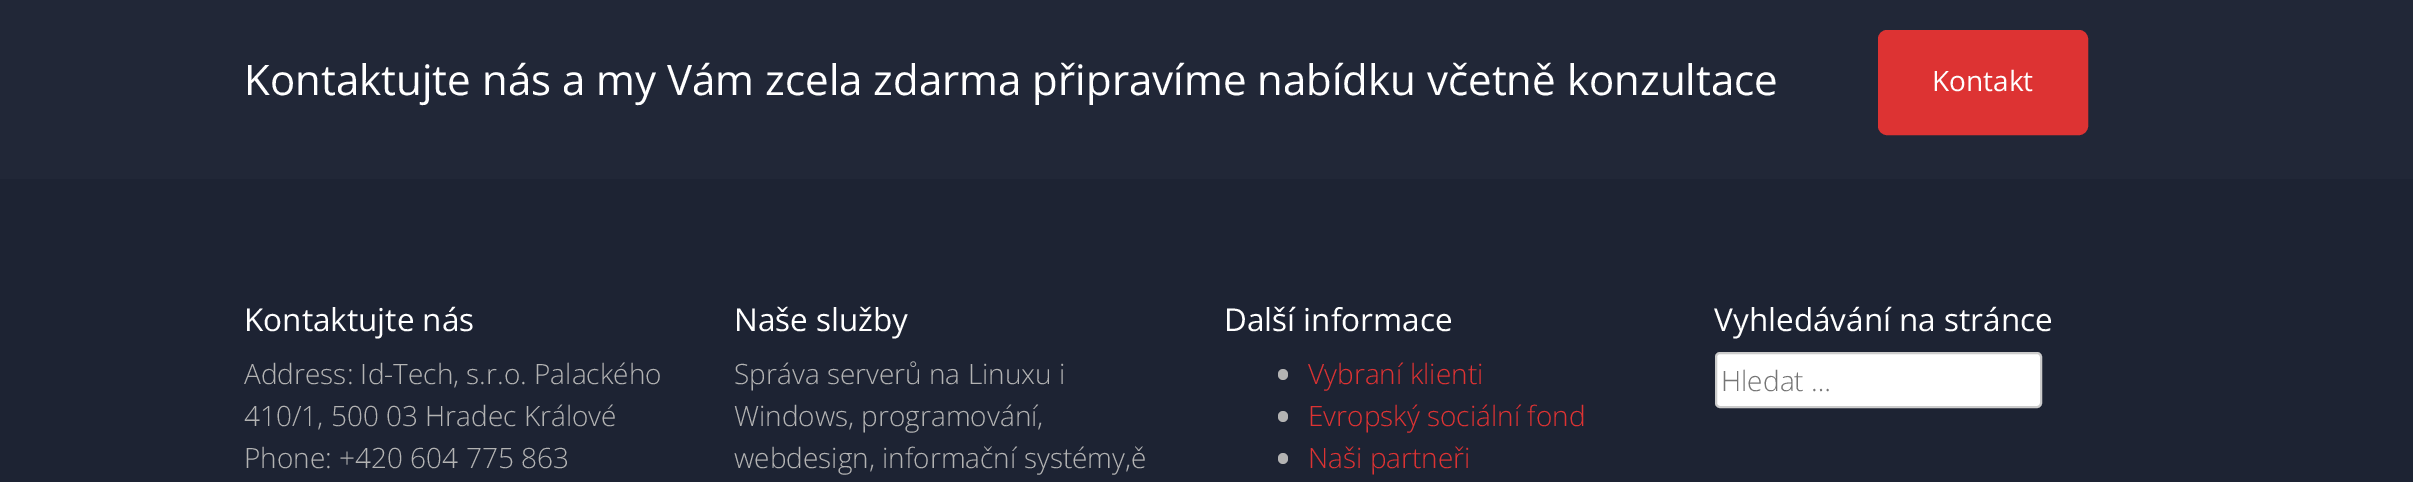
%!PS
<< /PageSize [2413 482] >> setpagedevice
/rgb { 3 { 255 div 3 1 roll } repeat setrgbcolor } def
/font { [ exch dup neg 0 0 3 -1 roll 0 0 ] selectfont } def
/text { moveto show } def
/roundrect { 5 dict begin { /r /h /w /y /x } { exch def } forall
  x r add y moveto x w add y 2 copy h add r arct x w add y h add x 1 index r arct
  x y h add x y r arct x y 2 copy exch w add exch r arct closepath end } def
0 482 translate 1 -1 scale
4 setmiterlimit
33 39 55 rgb
0 0 2413 482 rectfill
221 51 51 rgb
1879 31 208 103 8 roundrect gsave fill grestore
2 setlinewidth
stroke
29 35 51 rgb
0 179 2413 303 rectfill
179 179 179 rgb
1278 369 10 11 5 roundrect fill
1278 411 10 11 5 roundrect fill
1278 453 10 11 5 roundrect fill
255 255 255 rgb
1716 353 325 54 4 roundrect gsave fill grestore
204 204 204 rgb
stroke
/OpenSans-Regular 42 font
255 255 255 rgb
(Kontaktujte nás a my Vám zcela zdarma připravíme nabídku včetně konzultace) 244 95 text
/OpenSans-Regular 28 font
(Kontakt) 1932 91 text
/OpenSans-Regular 31.5 font
(Kontaktujte nás) 244 331 text
/OpenSans-Light 28 font
179 179 179 rgb
(Address: Id-Tech, s.r.o. Palackého) 244 384 text
(410/1, 500 03 Hradec Králové) 244 426 text
(Phone: +420 604 775 863) 244 468 text
/OpenSans-Regular 31.5 font
255 255 255 rgb
(Naše služby) 734 331 text
/OpenSans-Light 28 font
179 179 179 rgb
(Správa serverů na Linuxu i) 734 384 text
(Windows, programování,) 734 426 text
(webdesign, informační systémy,ě) 734 468 text
/OpenSans-Regular 31.5 font
255 255 255 rgb
(Další informace) 1224 331 text
/OpenSans-Light 28 font
221 51 51 rgb
(Vybraní klienti) 1308 384 text
(Evropský sociální fond) 1308 426 text
(Naši partneři) 1308 468 text
/OpenSans-Regular 31.5 font
255 255 255 rgb
(Vyhledávání na stránce) 1714 331 text
/OpenSans-Light 28 font
117 117 117 rgb
(Hledat …) 1721 391 text
showpage
